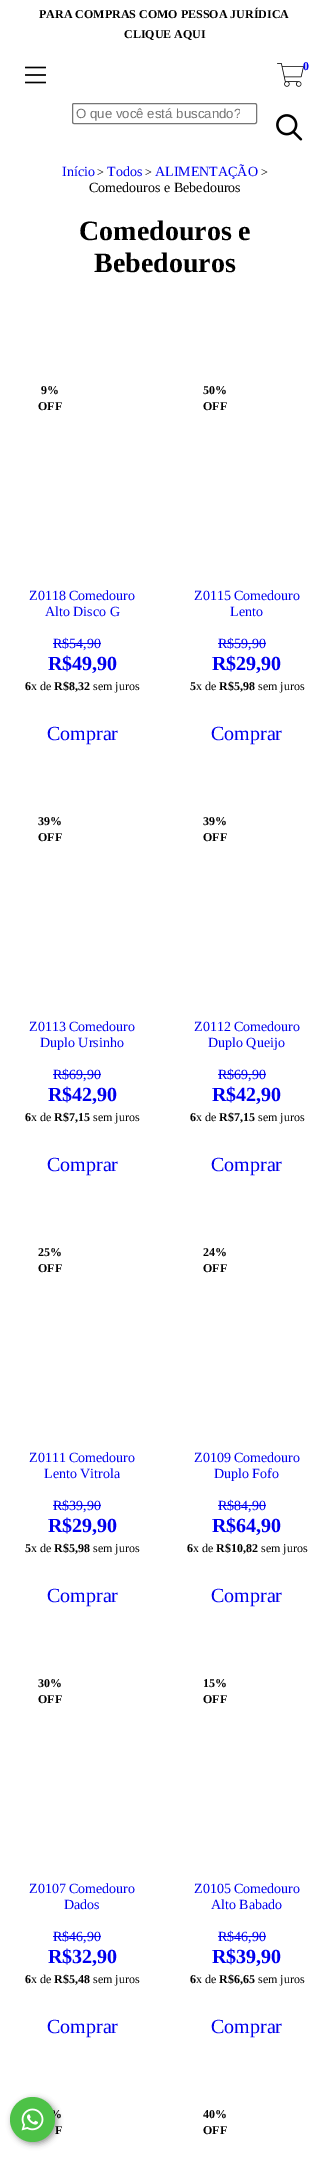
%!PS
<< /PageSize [329 2182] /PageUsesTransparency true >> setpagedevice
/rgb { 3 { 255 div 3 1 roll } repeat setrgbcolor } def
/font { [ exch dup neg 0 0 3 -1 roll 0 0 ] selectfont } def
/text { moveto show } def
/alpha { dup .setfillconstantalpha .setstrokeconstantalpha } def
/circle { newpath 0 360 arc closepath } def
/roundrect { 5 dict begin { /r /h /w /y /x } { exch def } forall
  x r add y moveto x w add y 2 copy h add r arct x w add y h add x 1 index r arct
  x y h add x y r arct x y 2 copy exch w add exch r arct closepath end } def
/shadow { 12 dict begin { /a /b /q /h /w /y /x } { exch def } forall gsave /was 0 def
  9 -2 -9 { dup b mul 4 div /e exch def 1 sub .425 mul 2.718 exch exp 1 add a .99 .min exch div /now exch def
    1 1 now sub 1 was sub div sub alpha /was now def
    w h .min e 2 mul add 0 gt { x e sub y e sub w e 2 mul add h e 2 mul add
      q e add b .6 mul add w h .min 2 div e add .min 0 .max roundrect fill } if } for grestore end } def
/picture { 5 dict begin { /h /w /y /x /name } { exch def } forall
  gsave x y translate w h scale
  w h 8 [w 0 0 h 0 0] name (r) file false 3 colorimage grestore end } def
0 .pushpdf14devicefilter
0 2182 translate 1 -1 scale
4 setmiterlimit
255 255 255 rgb
0 0 329 2182 rectfill
(img_01.rgb) 25 66 21 18 picture
(img_02.rgb) 277 63 27 24 picture
118 118 118 rgb
72.5 103.5 184 20 1.5 roundrect stroke
(img_03.rgb) 276 114 27 27 picture
0 0 238 rgb
53 643 48 1 rectfill
218 643 48 1 rectfill
53 1074 48 1 rectfill
218 1074 48 1 rectfill
53 1505 48 1 rectfill
218 1505 48 1 rectfill
53 1936 48 1 rectfill
218 1936 48 1 rectfill
0 0 0 rgb
12 2099 45 45 22.5 3 0.4 shadow
/LiberationSerif-Bold 12 font
(PARA COMPRAS COMO PESSOA JURÍDICA) 39 18 text
(CLIQUE AQUI) 124 38 text
0 0 238 rgb
(0) 303 70 text
gsave
76 106 164 15 rectclip
/LiberationSans-Regular 13.25 font
117 117 117 rgb
(O que você está buscando?) 76 118 text
grestore
/LiberationSerif-Regular 14 font
(Início) 62 176 text
/LiberationSerif-Regular 12 font
0 0 0 rgb
(>) 97 176 text
/LiberationSerif-Regular 14 font
0 0 238 rgb
(Todos) 107 176 text
/LiberationSerif-Regular 12 font
0 0 0 rgb
(>) 145 176 text
/LiberationSerif-Regular 14 font
0 0 238 rgb
(ALIMENTAÇÃO) 155 176 text
/LiberationSerif-Regular 12 font
0 0 0 rgb
(>) 261 176 text
/LiberationSerif-Regular 14 font
(Comedouros e Bebedouros) 89 192 text
/LiberationSerif-Bold 28 font
(Comedouros e) 79 240 text
(Bebedouros) 94 272 text
/LiberationSerif-Bold 12 font
(9%) 41 394 text
(OFF) 38 410 text
/LiberationSerif-Regular 14 font
0 0 238 rgb
(Z0118 Comedouro) 29 600 text
(Alto Disco G) 45 616 text
(R$54,90) 53 648 text
/LiberationSerif-Bold 20 font
(R$49,90) 48 670 text
/LiberationSerif-Bold 12 font
0 0 0 rgb
(6) 25 690 text
/LiberationSerif-Regular 12 font
(x de) 31 690 text
/LiberationSerif-Bold 12 font
(R$8,32) 54 690 text
/LiberationSerif-Regular 12 font
(sem juros) 93 690 text
/LiberationSerif-Regular 20 font
0 0 238 rgb
(Comprar) 47 740 text
/LiberationSerif-Bold 12 font
0 0 0 rgb
(50%) 203 394 text
(OFF) 203 410 text
/LiberationSerif-Regular 14 font
0 0 238 rgb
(Z0115 Comedouro) 194 600 text
(Lento) 230 616 text
(R$59,90) 218 648 text
/LiberationSerif-Bold 20 font
(R$29,90) 212 670 text
/LiberationSerif-Bold 12 font
0 0 0 rgb
(5) 190 690 text
/LiberationSerif-Regular 12 font
(x de) 196 690 text
/LiberationSerif-Bold 12 font
(R$5,98) 219 690 text
/LiberationSerif-Regular 12 font
(sem juros) 258 690 text
/LiberationSerif-Regular 20 font
0 0 238 rgb
(Comprar) 211 740 text
/LiberationSerif-Bold 12 font
0 0 0 rgb
(39%) 38 825 text
(OFF) 38 841 text
/LiberationSerif-Regular 14 font
0 0 238 rgb
(Z0113 Comedouro) 29 1031 text
(Duplo Ursinho) 40 1047 text
(R$69,90) 53 1079 text
/LiberationSerif-Bold 20 font
(R$42,90) 48 1101 text
/LiberationSerif-Bold 12 font
0 0 0 rgb
(6) 25 1121 text
/LiberationSerif-Regular 12 font
(x de) 31 1121 text
/LiberationSerif-Bold 12 font
(R$7,15) 54 1121 text
/LiberationSerif-Regular 12 font
(sem juros) 93 1121 text
/LiberationSerif-Regular 20 font
0 0 238 rgb
(Comprar) 47 1171 text
/LiberationSerif-Bold 12 font
0 0 0 rgb
(39%) 203 825 text
(OFF) 203 841 text
/LiberationSerif-Regular 14 font
0 0 238 rgb
(Z0112 Comedouro) 194 1031 text
(Duplo Queijo) 208 1047 text
(R$69,90) 218 1079 text
/LiberationSerif-Bold 20 font
(R$42,90) 212 1101 text
/LiberationSerif-Bold 12 font
0 0 0 rgb
(6) 190 1121 text
/LiberationSerif-Regular 12 font
(x de) 196 1121 text
/LiberationSerif-Bold 12 font
(R$7,15) 219 1121 text
/LiberationSerif-Regular 12 font
(sem juros) 258 1121 text
/LiberationSerif-Regular 20 font
0 0 238 rgb
(Comprar) 211 1171 text
/LiberationSerif-Bold 12 font
0 0 0 rgb
(25%) 38 1256 text
(OFF) 38 1272 text
/LiberationSerif-Regular 14 font
0 0 238 rgb
(Z0111 Comedouro) 29 1462 text
(Lento Vitrola) 44 1478 text
(R$39,90) 53 1510 text
/LiberationSerif-Bold 20 font
(R$29,90) 48 1532 text
/LiberationSerif-Bold 12 font
0 0 0 rgb
(5) 25 1552 text
/LiberationSerif-Regular 12 font
(x de) 31 1552 text
/LiberationSerif-Bold 12 font
(R$5,98) 54 1552 text
/LiberationSerif-Regular 12 font
(sem juros) 93 1552 text
/LiberationSerif-Regular 20 font
0 0 238 rgb
(Comprar) 47 1602 text
/LiberationSerif-Bold 12 font
0 0 0 rgb
(24%) 203 1256 text
(OFF) 203 1272 text
/LiberationSerif-Regular 14 font
0 0 238 rgb
(Z0109 Comedouro) 194 1462 text
(Duplo Fofo) 214 1478 text
(R$84,90) 218 1510 text
/LiberationSerif-Bold 20 font
(R$64,90) 212 1532 text
/LiberationSerif-Bold 12 font
0 0 0 rgb
(6) 187 1552 text
/LiberationSerif-Regular 12 font
(x de) 193 1552 text
/LiberationSerif-Bold 12 font
(R$10,82) 216 1552 text
/LiberationSerif-Regular 12 font
(sem juros) 261 1552 text
/LiberationSerif-Regular 20 font
0 0 238 rgb
(Comprar) 211 1602 text
/LiberationSerif-Bold 12 font
0 0 0 rgb
(30%) 38 1687 text
(OFF) 38 1703 text
/LiberationSerif-Regular 14 font
0 0 238 rgb
(Z0107 Comedouro) 29 1893 text
(Dados) 64 1909 text
(R$46,90) 53 1941 text
/LiberationSerif-Bold 20 font
(R$32,90) 48 1963 text
/LiberationSerif-Bold 12 font
0 0 0 rgb
(6) 25 1983 text
/LiberationSerif-Regular 12 font
(x de) 31 1983 text
/LiberationSerif-Bold 12 font
(R$5,48) 54 1983 text
/LiberationSerif-Regular 12 font
(sem juros) 93 1983 text
/LiberationSerif-Regular 20 font
0 0 238 rgb
(Comprar) 47 2033 text
/LiberationSerif-Bold 12 font
0 0 0 rgb
(15%) 203 1687 text
(OFF) 203 1703 text
/LiberationSerif-Regular 14 font
0 0 238 rgb
(Z0105 Comedouro) 194 1893 text
(Alto Babado) 211 1909 text
(R$46,90) 218 1941 text
/LiberationSerif-Bold 20 font
(R$39,90) 212 1963 text
/LiberationSerif-Bold 12 font
0 0 0 rgb
(6) 190 1983 text
/LiberationSerif-Regular 12 font
(x de) 196 1983 text
/LiberationSerif-Bold 12 font
(R$6,65) 219 1983 text
/LiberationSerif-Regular 12 font
(sem juros) 258 1983 text
/LiberationSerif-Regular 20 font
0 0 238 rgb
(Comprar) 211 2033 text
/LiberationSerif-Bold 12 font
0 0 0 rgb
(%) 50 2118 text
(F) 55 2134 text
(40%) 203 2118 text
(OFF) 203 2134 text
77 194 71 rgb
32.5 2119.5 22.5 circle fill
(img_04.rgb) 21 2108 23 23 picture
.poppdf14devicefilter showpage
